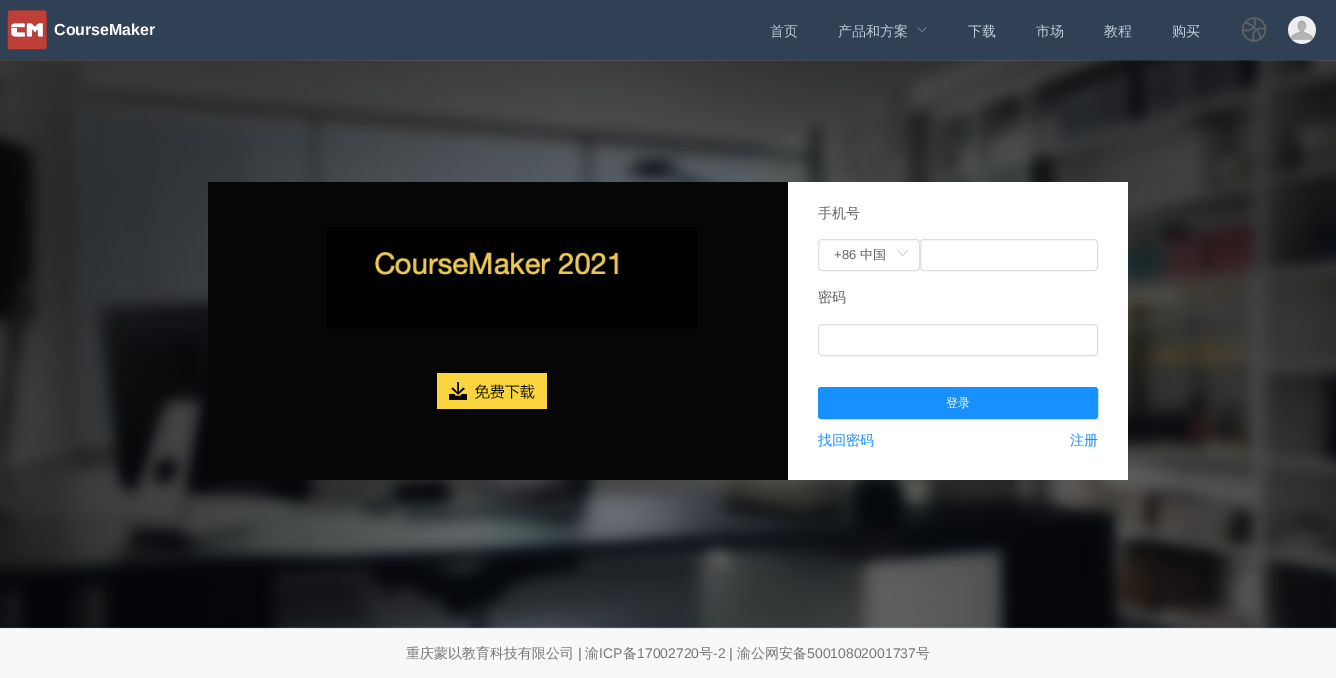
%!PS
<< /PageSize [1336 678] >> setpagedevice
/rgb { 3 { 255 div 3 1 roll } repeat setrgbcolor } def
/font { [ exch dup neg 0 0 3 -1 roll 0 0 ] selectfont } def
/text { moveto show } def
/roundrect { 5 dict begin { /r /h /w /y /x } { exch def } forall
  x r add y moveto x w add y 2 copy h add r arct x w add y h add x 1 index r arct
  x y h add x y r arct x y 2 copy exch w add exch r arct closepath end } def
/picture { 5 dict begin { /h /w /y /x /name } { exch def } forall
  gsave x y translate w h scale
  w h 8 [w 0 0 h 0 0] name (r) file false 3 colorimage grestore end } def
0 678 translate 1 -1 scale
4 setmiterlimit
48 65 86 rgb
0 0 1336 678 rectfill
(img_01.rgb) 7 10 40 40 picture
(img_02.rgb) 917 27 10 5 picture
(img_03.rgb) 1241 17 26 25 picture
(img_04.rgb) 1288 16 28 28 picture
(img_05.rgb) 0 60 1336 568 picture
(img_06.rgb) 208 182 580 298 picture
255 255 255 rgb
788 182 340 298 rectfill
220 223 230 rgb
818.5 239.5 101 31 3.5 roundrect stroke
(img_07.rgb) 897 250 11 6 picture
920.5 239.5 177 31 3.5 roundrect stroke
818.5 324.5 279 31 3.5 roundrect stroke
24 144 255 rgb
818.5 387.5 279 31 2.5 roundrect gsave fill grestore
stroke
248 248 248 rgb
0 629 1336 49 rectfill
223 230 236 rgb
0 628 1336 1 rectfill
/LiberationSans-Bold 16 font
255 255 255 rgb
(CourseMaker) 54 35 text
/WenQuanYiZenHei-Medium 14 font
191 203 217 rgb
(首页) 770 36 text
(产品和方案) 838 36 text
(下载) 968 36 text
(市场) 1036 36 text
(教程) 1104 36 text
(购买) 1172 36 text
96 98 102 rgb
(手机号) 818 218 text
/LiberationSans-Regular 13 font
(+86) 834 259 text
/WenQuanYiZenHei-Medium 13 font
(中国) 860 259 text
/WenQuanYiZenHei-Medium 14 font
(密码) 818 302 text
/WenQuanYiZenHei-Medium 12 font
255 255 255 rgb
(登录) 946 407 text
/WenQuanYiZenHei-Medium 14 font
24 144 255 rgb
(找回密码) 818 445 text
(注册) 1070 445 text
119 119 119 rgb
(重庆蒙以教育科技有限公司) 406 658 text
/LiberationSans-Regular 14 font
(|) 578 658 text
/WenQuanYiZenHei-Medium 14 font
(渝) 585 658 text
/LiberationSans-Regular 14 font
(ICP) 599 658 text
/WenQuanYiZenHei-Medium 14 font
(备) 623 658 text
/LiberationSans-Regular 14 font
(17002720) 637 658 text
/WenQuanYiZenHei-Medium 14 font
(号) 699 658 text
/LiberationSans-Regular 14 font
(-2 |) 713 658 text
/WenQuanYiZenHei-Medium 14 font
(渝公网安备) 737 658 text
/LiberationSans-Regular 14 font
(50010802001737) 807 658 text
/WenQuanYiZenHei-Medium 14 font
(号) 916 658 text
showpage
